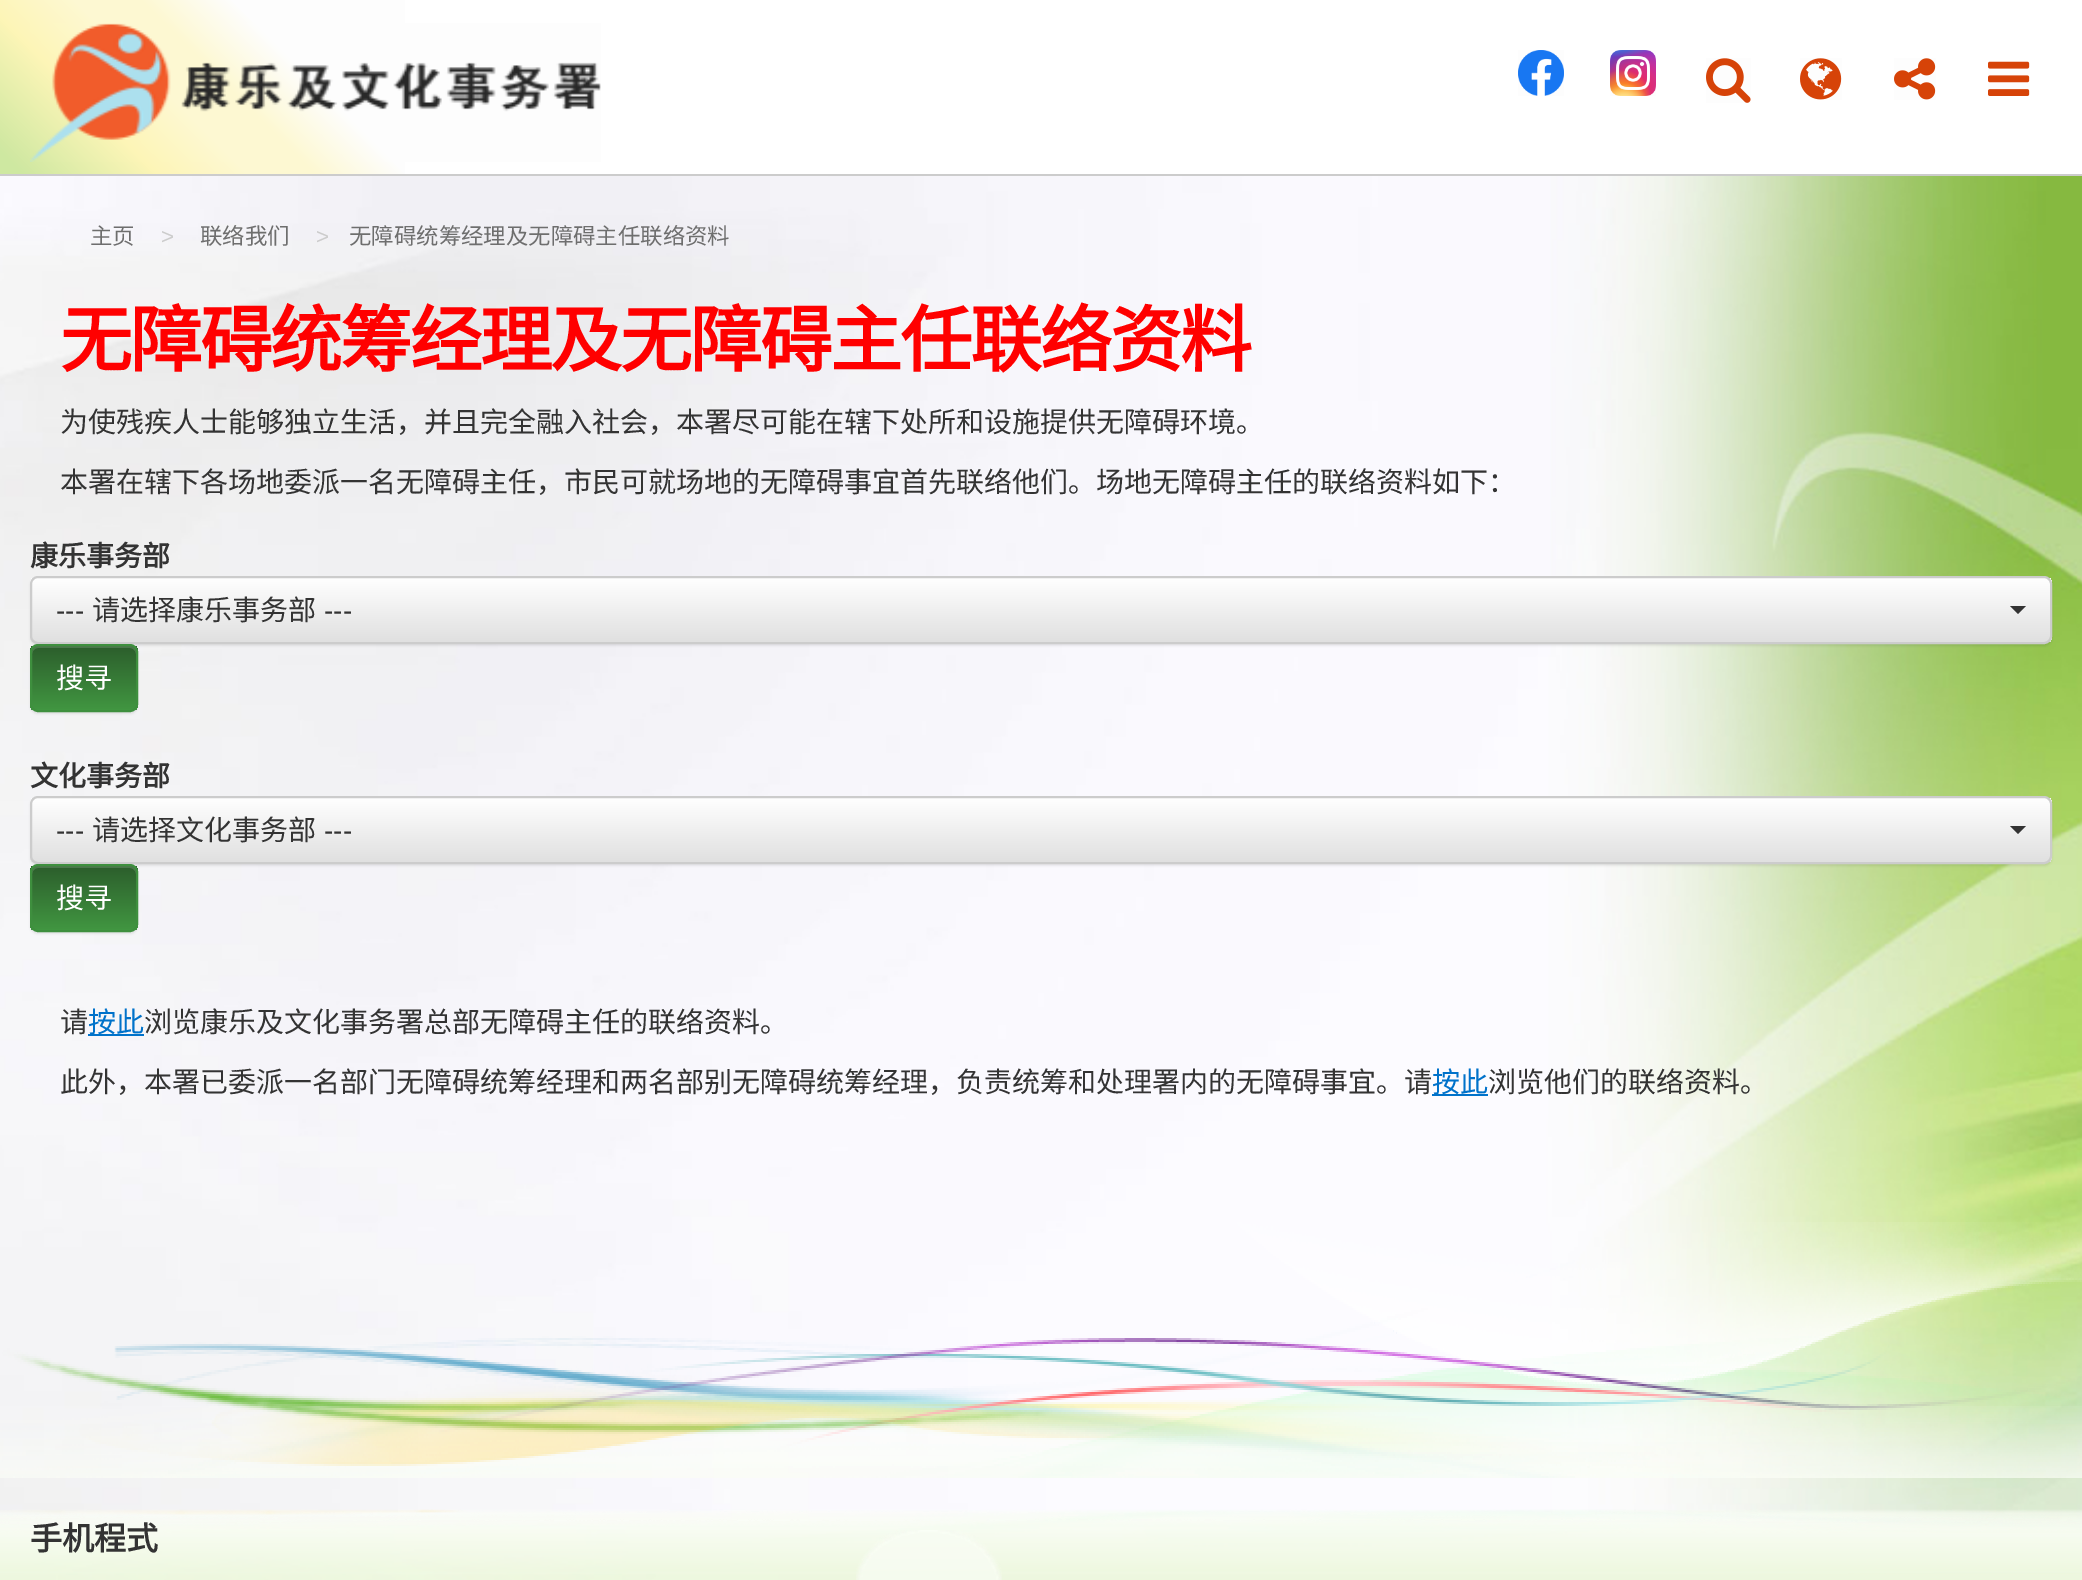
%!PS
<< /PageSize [2082 1580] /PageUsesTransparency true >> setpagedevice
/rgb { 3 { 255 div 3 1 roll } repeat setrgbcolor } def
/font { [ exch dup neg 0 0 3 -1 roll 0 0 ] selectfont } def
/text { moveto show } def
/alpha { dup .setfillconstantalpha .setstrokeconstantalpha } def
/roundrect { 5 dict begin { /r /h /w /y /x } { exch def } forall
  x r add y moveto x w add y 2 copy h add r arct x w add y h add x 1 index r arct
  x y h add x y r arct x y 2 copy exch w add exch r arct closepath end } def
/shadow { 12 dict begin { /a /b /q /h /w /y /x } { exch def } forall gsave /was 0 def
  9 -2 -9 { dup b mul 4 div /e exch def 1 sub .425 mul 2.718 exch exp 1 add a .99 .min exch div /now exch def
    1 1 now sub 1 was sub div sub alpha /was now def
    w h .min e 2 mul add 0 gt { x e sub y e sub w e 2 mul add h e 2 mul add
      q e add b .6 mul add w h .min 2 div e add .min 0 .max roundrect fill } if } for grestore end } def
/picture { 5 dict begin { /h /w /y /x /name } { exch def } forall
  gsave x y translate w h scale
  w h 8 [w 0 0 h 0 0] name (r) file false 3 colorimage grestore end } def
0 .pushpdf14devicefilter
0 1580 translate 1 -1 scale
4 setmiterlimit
255 255 255 rgb
0 0 2082 1580 rectfill
(img_01.rgb) 0 176 2082 1399 picture
gsave 0 0 moveto 405 0 rlineto 0 174 rlineto -405 0 rlineto closepath clip newpath
<< /ShadingType 2 /ColorSpace /DeviceRGB /Coords [477 651 1605 -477] /Extend [true true] /Function << /FunctionType 3 /Domain [0 1] /Functions [<< /FunctionType 2 /Domain [0 1] /C0 [0.808 0.91 0.631] /C1 [0.808 0.91 0.631] /N 1 >> << /FunctionType 2 /Domain [0 1] /C0 [0.808 0.91 0.631] /C1 [0.992 0.961 0.718] /N 1 >> << /FunctionType 2 /Domain [0 1] /C0 [0.992 0.961 0.718] /C1 [0.992 0.973 0.824] /N 1 >> << /FunctionType 2 /Domain [0 1] /C0 [0.992 0.973 0.824] /C1 [0.992 0.973 0.824] /N 1 >> << /FunctionType 2 /Domain [0 1] /C0 [0.992 0.973 0.824] /C1 [0.992 0.992 0.992] /N 1 >> << /FunctionType 2 /Domain [0 1] /C0 [0.992 0.992 0.992] /C1 [0.992 0.992 0.992] /N 1 >>] /Bounds [0.01 0.07 0.11 0.14 0.18] /Encode [0 1 0 1 0 1 0 1 0 1 0 1] >> >> shfill grestore
204 204 204 rgb
0 174 2082 2 rectfill
(img_02.rgb) 30 23 571 139 picture
(img_03.rgb) 1518 50 46 46 picture
(img_04.rgb) 1610 50 46 46 picture
(img_05.rgb) 1706 58 45 45 picture
(img_06.rgb) 1800 58 42 42 picture
(img_07.rgb) 1894 58 42 42 picture
(img_08.rgb) 1988 61 42 35 picture
0 0 0 rgb
30 578 2022 68 8 1 0.07 shadow
gsave
30 576 2022 68 8 roundrect clip newpath
gsave 30 578 moveto 2022 0 rlineto 0 64 rlineto -2022 0 rlineto closepath clip newpath
<< /ShadingType 2 /ColorSpace /DeviceRGB /Coords [1041 578 1041 642] /Extend [true true] /Function << /FunctionType 2 /Domain [0 1] /C0 [1 1 1] /C1 [0.878 0.878 0.878] /N 1 >> >> shfill grestore
grestore
204 204 204 rgb
2 setlinewidth
31 577 2020 66 7 roundrect stroke
51 51 51 rgb
2010 606 moveto 16 0 rlineto -8 8 rlineto closepath fill
0 0 0 rgb
30 646 108 68 8 1 0.07 shadow
gsave
30 644 108 68 8 roundrect clip newpath
gsave 30 646 moveto 108 0 rlineto 0 64 rlineto -108 0 rlineto closepath clip newpath
<< /ShadingType 2 /ColorSpace /DeviceRGB /Coords [84 646 84 710] /Extend [true true] /Function << /FunctionType 2 /Domain [0 1] /C0 [0.173 0.369 0.173] /C1 [0.255 0.588 0.255] /N 1 >> >> shfill grestore
grestore
0.15 alpha
255 255 255 rgb
38 648 moveto 92 0 rlineto 3 0 6 3 6 6 rcurveto 0 -12 -12 -8 -21 -8 rcurveto -62 0 rlineto -9 0 -21 -4 -21 8 rcurveto 0 -3 3 -6 6 -6 rcurveto closepath fill
1 alpha
62 143 62 rgb
31 645 106 66 7 roundrect stroke
0 0 0 rgb
30 798 2022 68 8 1 0.07 shadow
gsave
30 796 2022 68 8 roundrect clip newpath
gsave 30 798 moveto 2022 0 rlineto 0 64 rlineto -2022 0 rlineto closepath clip newpath
<< /ShadingType 2 /ColorSpace /DeviceRGB /Coords [1041 798 1041 862] /Extend [true true] /Function << /FunctionType 2 /Domain [0 1] /C0 [1 1 1] /C1 [0.878 0.878 0.878] /N 1 >> >> shfill grestore
grestore
204 204 204 rgb
31 797 2020 66 7 roundrect stroke
51 51 51 rgb
2010 826 moveto 16 0 rlineto -8 8 rlineto closepath fill
0 0 0 rgb
30 866 108 68 8 1 0.07 shadow
gsave
30 864 108 68 8 roundrect clip newpath
gsave 30 866 moveto 108 0 rlineto 0 64 rlineto -108 0 rlineto closepath clip newpath
<< /ShadingType 2 /ColorSpace /DeviceRGB /Coords [84 866 84 930] /Extend [true true] /Function << /FunctionType 2 /Domain [0 1] /C0 [0.173 0.369 0.173] /C1 [0.255 0.588 0.255] /N 1 >> >> shfill grestore
grestore
0.15 alpha
255 255 255 rgb
38 868 moveto 92 0 rlineto 3 0 6 3 6 6 rcurveto 0 -12 -12 -8 -21 -8 rcurveto -62 0 rlineto -9 0 -21 -4 -21 8 rcurveto 0 -3 3 -6 6 -6 rcurveto closepath fill
1 alpha
62 143 62 rgb
31 865 106 66 7 roundrect stroke
0 114 202 rgb
88 1034 56 2 rectfill
1432 1094 56 2 rectfill
(img_09.rgb) 0 1509 2082 71 picture
(img_10.rgb) 0 1222 2082 256 picture
(img_11.rgb) 856 1530 146 50 picture
/NotoSansCJKSC-Regular 22.4 font
110 110 110 rgb
(主页) 90 244 text
/LiberationSans-Regular 22.4 font
204 204 204 rgb
(>) 161 244 text
/NotoSansCJKSC-Regular 22.4 font
110 110 110 rgb
(联络我们) 200 244 text
/LiberationSans-Regular 22.4 font
204 204 204 rgb
(>) 316 244 text
/NotoSansCJKSC-Regular 22.4 font
110 110 110 rgb
(无障碍统筹经理及无障碍主任联络资料) 349 244 text
/NotoSansCJKSC-Bold 72 font
255 0 0 rgb
60 366 moveto -2 0 (无障碍统筹经理及无障碍主任联络资料) ashow
/NotoSansCJKSC-Regular 28 font
51 51 51 rgb
(为使残疾人士能够独立生活，并且完全融入社会，本署尽可能在辖下处所和设施提供无障碍环境。) 60 432 text
(本署在辖下各场地委派一名无障碍主任，市民可就场地的无障碍事宜首先联络他们。场地无障碍主任的联络资料如下：) 60 492 text
/NotoSansCJKSC-Bold 28 font
(康乐事务部) 30 566 text
/LiberationSans-Regular 28 font
(---) 56 620 text
/NotoSansCJKSC-Regular 28 font
(请选择康乐事务部) 92 620 text
/LiberationSans-Regular 28 font
(---) 324 620 text
/NotoSansCJKSC-Regular 28 font
255 255 255 rgb
(搜寻) 56 688 text
/NotoSansCJKSC-Bold 28 font
51 51 51 rgb
(文化事务部) 30 786 text
/LiberationSans-Regular 28 font
(---) 56 840 text
/NotoSansCJKSC-Regular 28 font
(请选择文化事务部) 92 840 text
/LiberationSans-Regular 28 font
(---) 324 840 text
/NotoSansCJKSC-Regular 28 font
255 255 255 rgb
(搜寻) 56 908 text
51 51 51 rgb
(请) 60 1032 text
0 114 202 rgb
(按此) 88 1032 text
51 51 51 rgb
(浏览康乐及文化事务署总部无障碍主任的联络资料。) 144 1032 text
(此外，本署已委派一名部门无障碍统筹经理和两名部别无障碍统筹经理，负责统筹和处理署内的无障碍事宜。请) 60 1092 text
0 114 202 rgb
(按此) 1432 1092 text
51 51 51 rgb
(浏览他们的联络资料。) 1488 1092 text
/NotoSansCJKSC-Bold 32 font
(手机程式) 30 1550 text
.poppdf14devicefilter showpage
